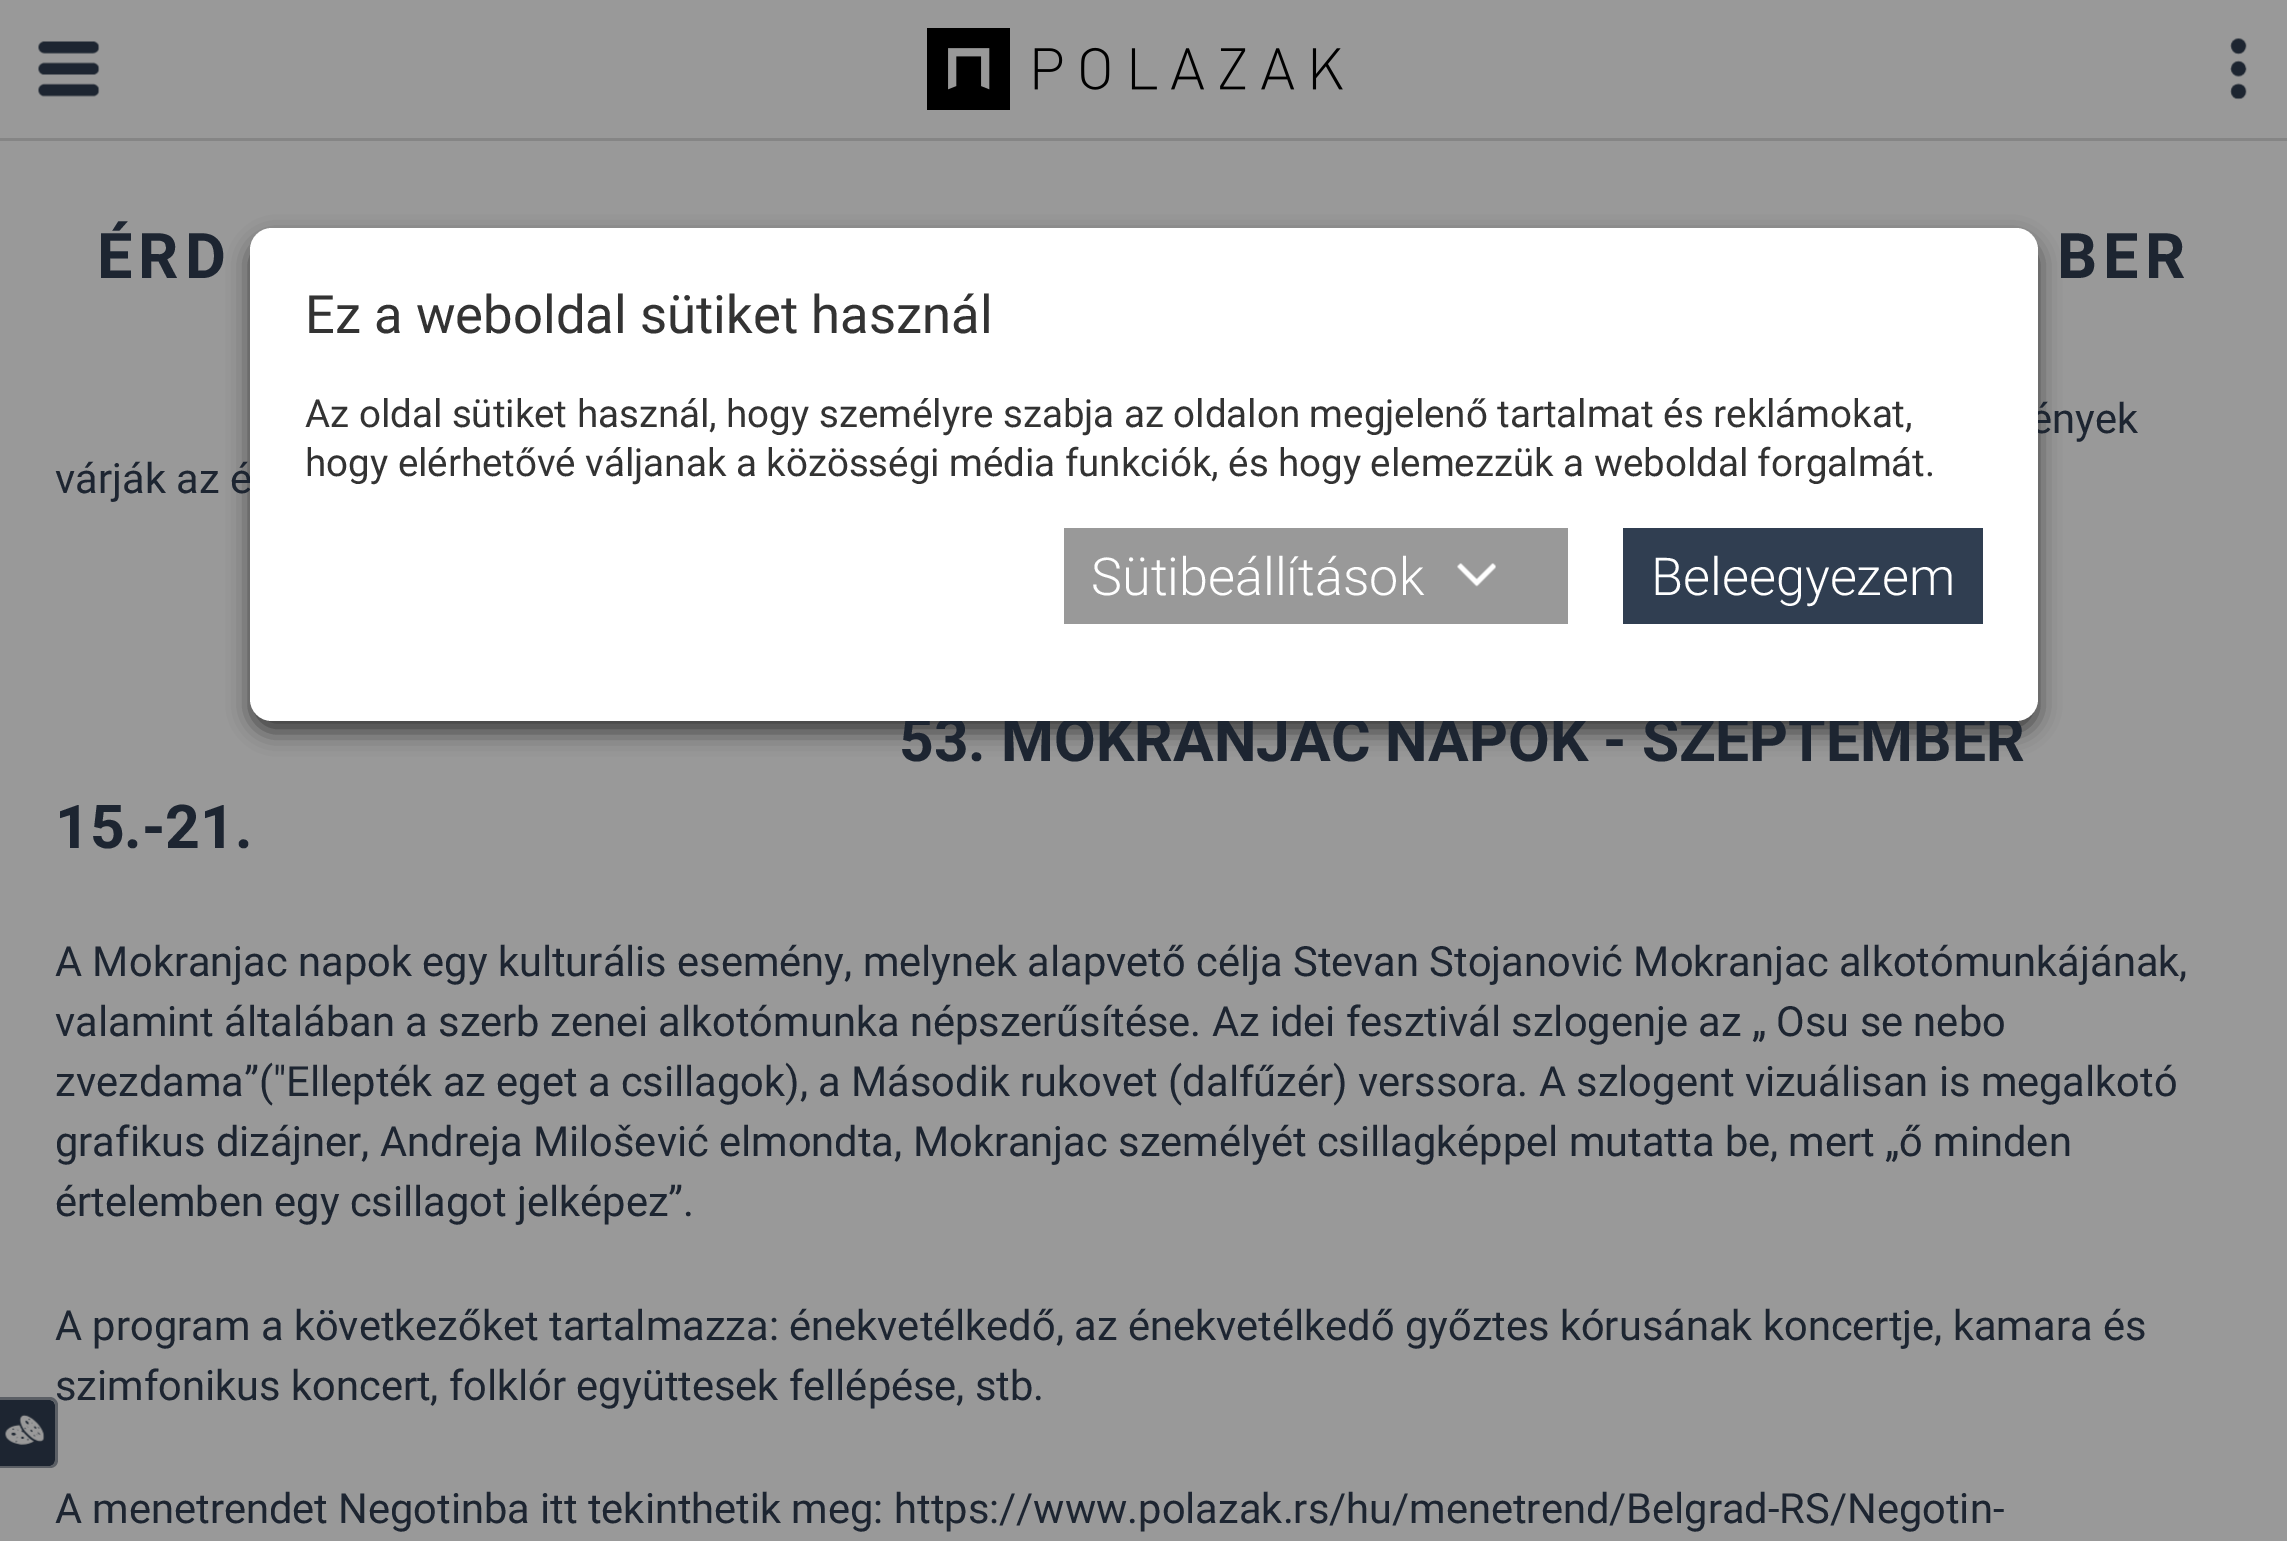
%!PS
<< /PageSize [2287 1541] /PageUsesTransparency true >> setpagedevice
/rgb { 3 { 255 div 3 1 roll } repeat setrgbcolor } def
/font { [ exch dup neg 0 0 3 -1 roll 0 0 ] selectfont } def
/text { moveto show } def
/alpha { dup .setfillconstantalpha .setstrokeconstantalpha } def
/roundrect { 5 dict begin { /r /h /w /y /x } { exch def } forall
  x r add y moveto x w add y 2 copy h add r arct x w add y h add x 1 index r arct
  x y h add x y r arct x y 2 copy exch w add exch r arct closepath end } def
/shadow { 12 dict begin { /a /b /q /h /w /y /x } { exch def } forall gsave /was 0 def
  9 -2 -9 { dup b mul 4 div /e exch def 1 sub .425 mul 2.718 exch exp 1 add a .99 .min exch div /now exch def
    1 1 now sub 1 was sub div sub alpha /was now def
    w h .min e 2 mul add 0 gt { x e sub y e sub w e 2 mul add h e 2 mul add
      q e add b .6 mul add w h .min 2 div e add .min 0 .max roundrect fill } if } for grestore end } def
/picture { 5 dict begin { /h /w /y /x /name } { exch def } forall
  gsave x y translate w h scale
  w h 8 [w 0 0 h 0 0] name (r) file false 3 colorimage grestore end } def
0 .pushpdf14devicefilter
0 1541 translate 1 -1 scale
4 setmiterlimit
153 153 153 rgb
0 0 2287 1541 rectfill
133 133 133 rgb
0 138 2287 3 rectfill
(img_01.rgb) 38 41 62 56 picture
(img_02.rgb) 927 28 416 82 picture
(img_03.rgb) 2230 38 17 62 picture
0 0 0 rgb
250 239 1788 493 22 11 0.6 shadow
29 37 49 rgb
0 1400 moveto 49 0 rlineto 3.5 0 6 2.5 6 6 rcurveto 0 54 rlineto 0 3.5 -2.5 6 -6 6 rcurveto -49 0 rlineto closepath fill
/Roboto-Bold 63 font
97 278 moveto 6 0 (ÉRD) ashow
2057 278 moveto 6 0 (BER) ashow
/Roboto-Regular 41.65 font
(ények) 2030 433 text
(várják az é) 55 493 text
/Roboto-Bold 60.5 font
(53. MOKRANJAC NAPOK - SZEPTEMBER) 899 761 text
(15.-21.) 55 848 text
/Roboto-Regular 41.65 font
(A Mokranjac napok egy kulturális esemény, melynek alapvető célja Stevan Stojanović Mokranjac alkotómunkájának,) 55 976 text
(valamint általában a szerb zenei alkotómunka népszerűsítése. Az idei fesztivál szlogenje az „ Osu se nebo) 55 1036 text
(zvezdama”\("Ellepték az eget a csillagok\), a Második rukovet \(dalfűzér\) verssora. A szlogent vizuálisan is megalkotó) 55 1096 text
(grafikus dizájner, Andreja Milošević elmondta, Mokranjac személyét csillagképpel mutatta be, mert „ő minden) 55 1156 text
(értelemben egy csillagot jelképez”.) 55 1216 text
(A program a következőket tartalmazza: énekvetélkedő, az énekvetélkedő győztes kórusának koncertje, kamara és) 55 1340 text
(szimfonikus koncert, folklór együttesek fellépése, stb.) 55 1400 text
(A menetrendet Negotinba itt tekinthetik meg:) 55 1523 text
(https://www.polazak.rs/hu/menetrend/Belgrad-RS/Negotin-) 894 1523 text
255 255 255 rgb
250 228 1788 493 22 roundrect fill
/Roboto-Regular 52.7 font
51 51 51 rgb
(Ez a weboldal sütiket használ) 305 333 text
/Roboto-Regular 38.5 font
(Az oldal sütiket használ, hogy személyre szabja az oldalon megjelenő tartalmat és reklámokat,) 305 427 text
(hogy elérhetővé váljanak a közösségi média funkciók, és hogy elemezzük a weboldal forgalmát.) 305 476 text
153 153 153 rgb
1064 528 504 96 rectfill
/Roboto-Light 52.25 font
255 255 255 rgb
(Sütibeállítások) 1091 595 text
(img_04.rgb) 1457 563 39 24 picture
48 62 81 rgb
1623 528 360 96 rectfill
255 255 255 rgb
(Beleegyezem) 1651 595 text
91 95 101 rgb
0 1397 moveto 50 0 rlineto 4 0 8 4 8 8 rcurveto 0 55 rlineto 0 5 -4 8 -8 8 rcurveto -50 0 rlineto closepath 0 1400 moveto 50 0 rlineto 3 0 5 2 5 5 rcurveto 0 55 rlineto 0 3 -2 6 -5 6 rcurveto -50 0 rlineto closepath eofill
(img_05.rgb) 5 1414 40 31 picture
.poppdf14devicefilter showpage
